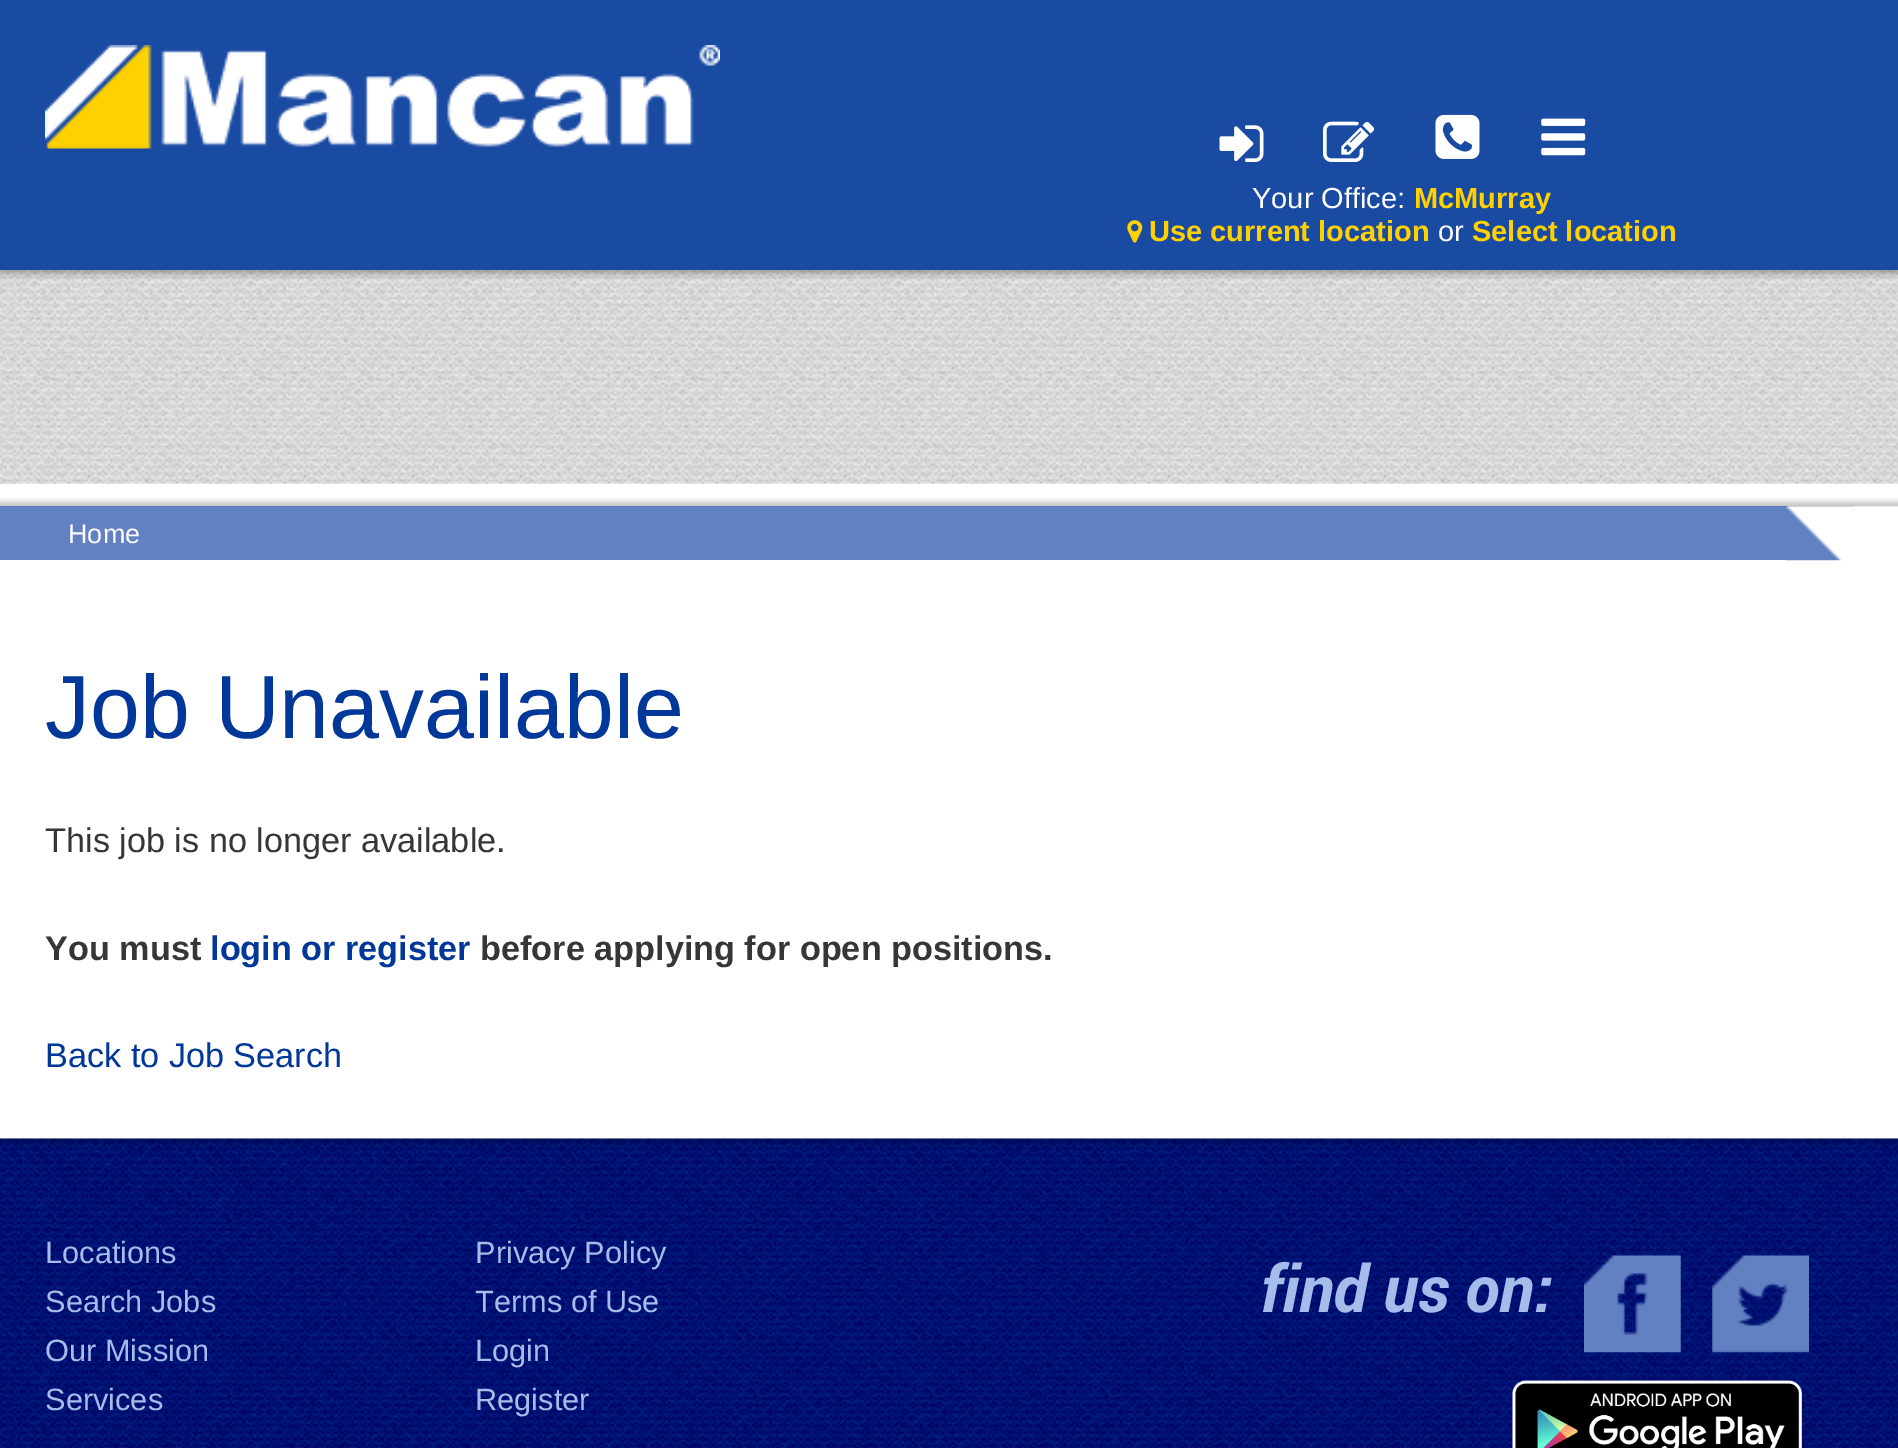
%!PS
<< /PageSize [1898 1448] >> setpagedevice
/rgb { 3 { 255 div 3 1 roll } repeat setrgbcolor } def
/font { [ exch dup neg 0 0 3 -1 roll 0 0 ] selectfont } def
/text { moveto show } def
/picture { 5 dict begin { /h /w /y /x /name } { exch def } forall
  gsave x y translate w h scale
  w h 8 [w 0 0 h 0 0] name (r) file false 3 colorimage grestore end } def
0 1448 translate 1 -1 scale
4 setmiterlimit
255 255 255 rgb
0 0 1898 1448 rectfill
26 75 163 rgb
0 0 1898 270 rectfill
(img_01.rgb) 45 45 675 104 picture
(img_02.rgb) 1219 125 45 37 picture
(img_03.rgb) 1323 121 51 41 picture
(img_04.rgb) 1435 114 45 45 picture
(img_05.rgb) 1541 118 45 38 picture
(img_06.rgb) 1127 220 16 23 picture
(img_08.rgb) 0 270 1898 214 picture
(img_07.rgb) 0 270 1898 9 picture
98 129 194 rgb
0 506 1854 54 rectfill
(img_10.rgb) 1786 506 68 55 picture
(img_09.rgb) 0 497 1898 10 picture
(img_11.rgb) 0 1138 1898 310 picture
(img_12.rgb) 0 1138 1898 9 picture
(img_13.rgb) 1584 1255 97 98 picture
(img_14.rgb) 1712 1255 97 98 picture
(img_15.rgb) 1512 1380 290 68 picture
/LiberationSans-Regular 29 font
255 255 255 rgb
(Your Office:) 1252 208 text
/LiberationSans-Bold 29 font
255 209 1 rgb
(McMurray) 1414 208 text
(Use current location) 1149 241 text
/LiberationSans-Regular 29 font
255 255 255 rgb
(or) 1438 241 text
/LiberationSans-Bold 29 font
255 209 1 rgb
(Select location) 1472 241 text
/LiberationSans-Regular 27 font
255 255 255 rgb
(Home) 68 543 text
/LiberationSans-Regular 89.75 font
1 55 153 rgb
(Job Unavailable) 45 738 text
/LiberationSans-Regular 34.25 font
54 54 54 rgb
(This job is no longer available.) 45 852 text
/LiberationSans-Bold 34.25 font
(You must) 45 960 text
1 55 153 rgb
(login or register) 210 960 text
54 54 54 rgb
(before applying for open positions.) 480 960 text
/LiberationSans-Regular 34.25 font
1 55 153 rgb
(Back to Job Search) 45 1067 text
/LiberationSans-Regular 30.75 font
166 188 234 rgb
(Locations) 45 1263 text
(Search Jobs) 45 1312 text
(Our Mission) 45 1361 text
(Services) 45 1410 text
(Privacy Policy) 475 1263 text
(Terms of Use) 475 1312 text
(Login) 475 1361 text
(Register) 475 1410 text
/roboto-BoldItalic 65 font
(find us on:) 1260 1312 text
showpage
